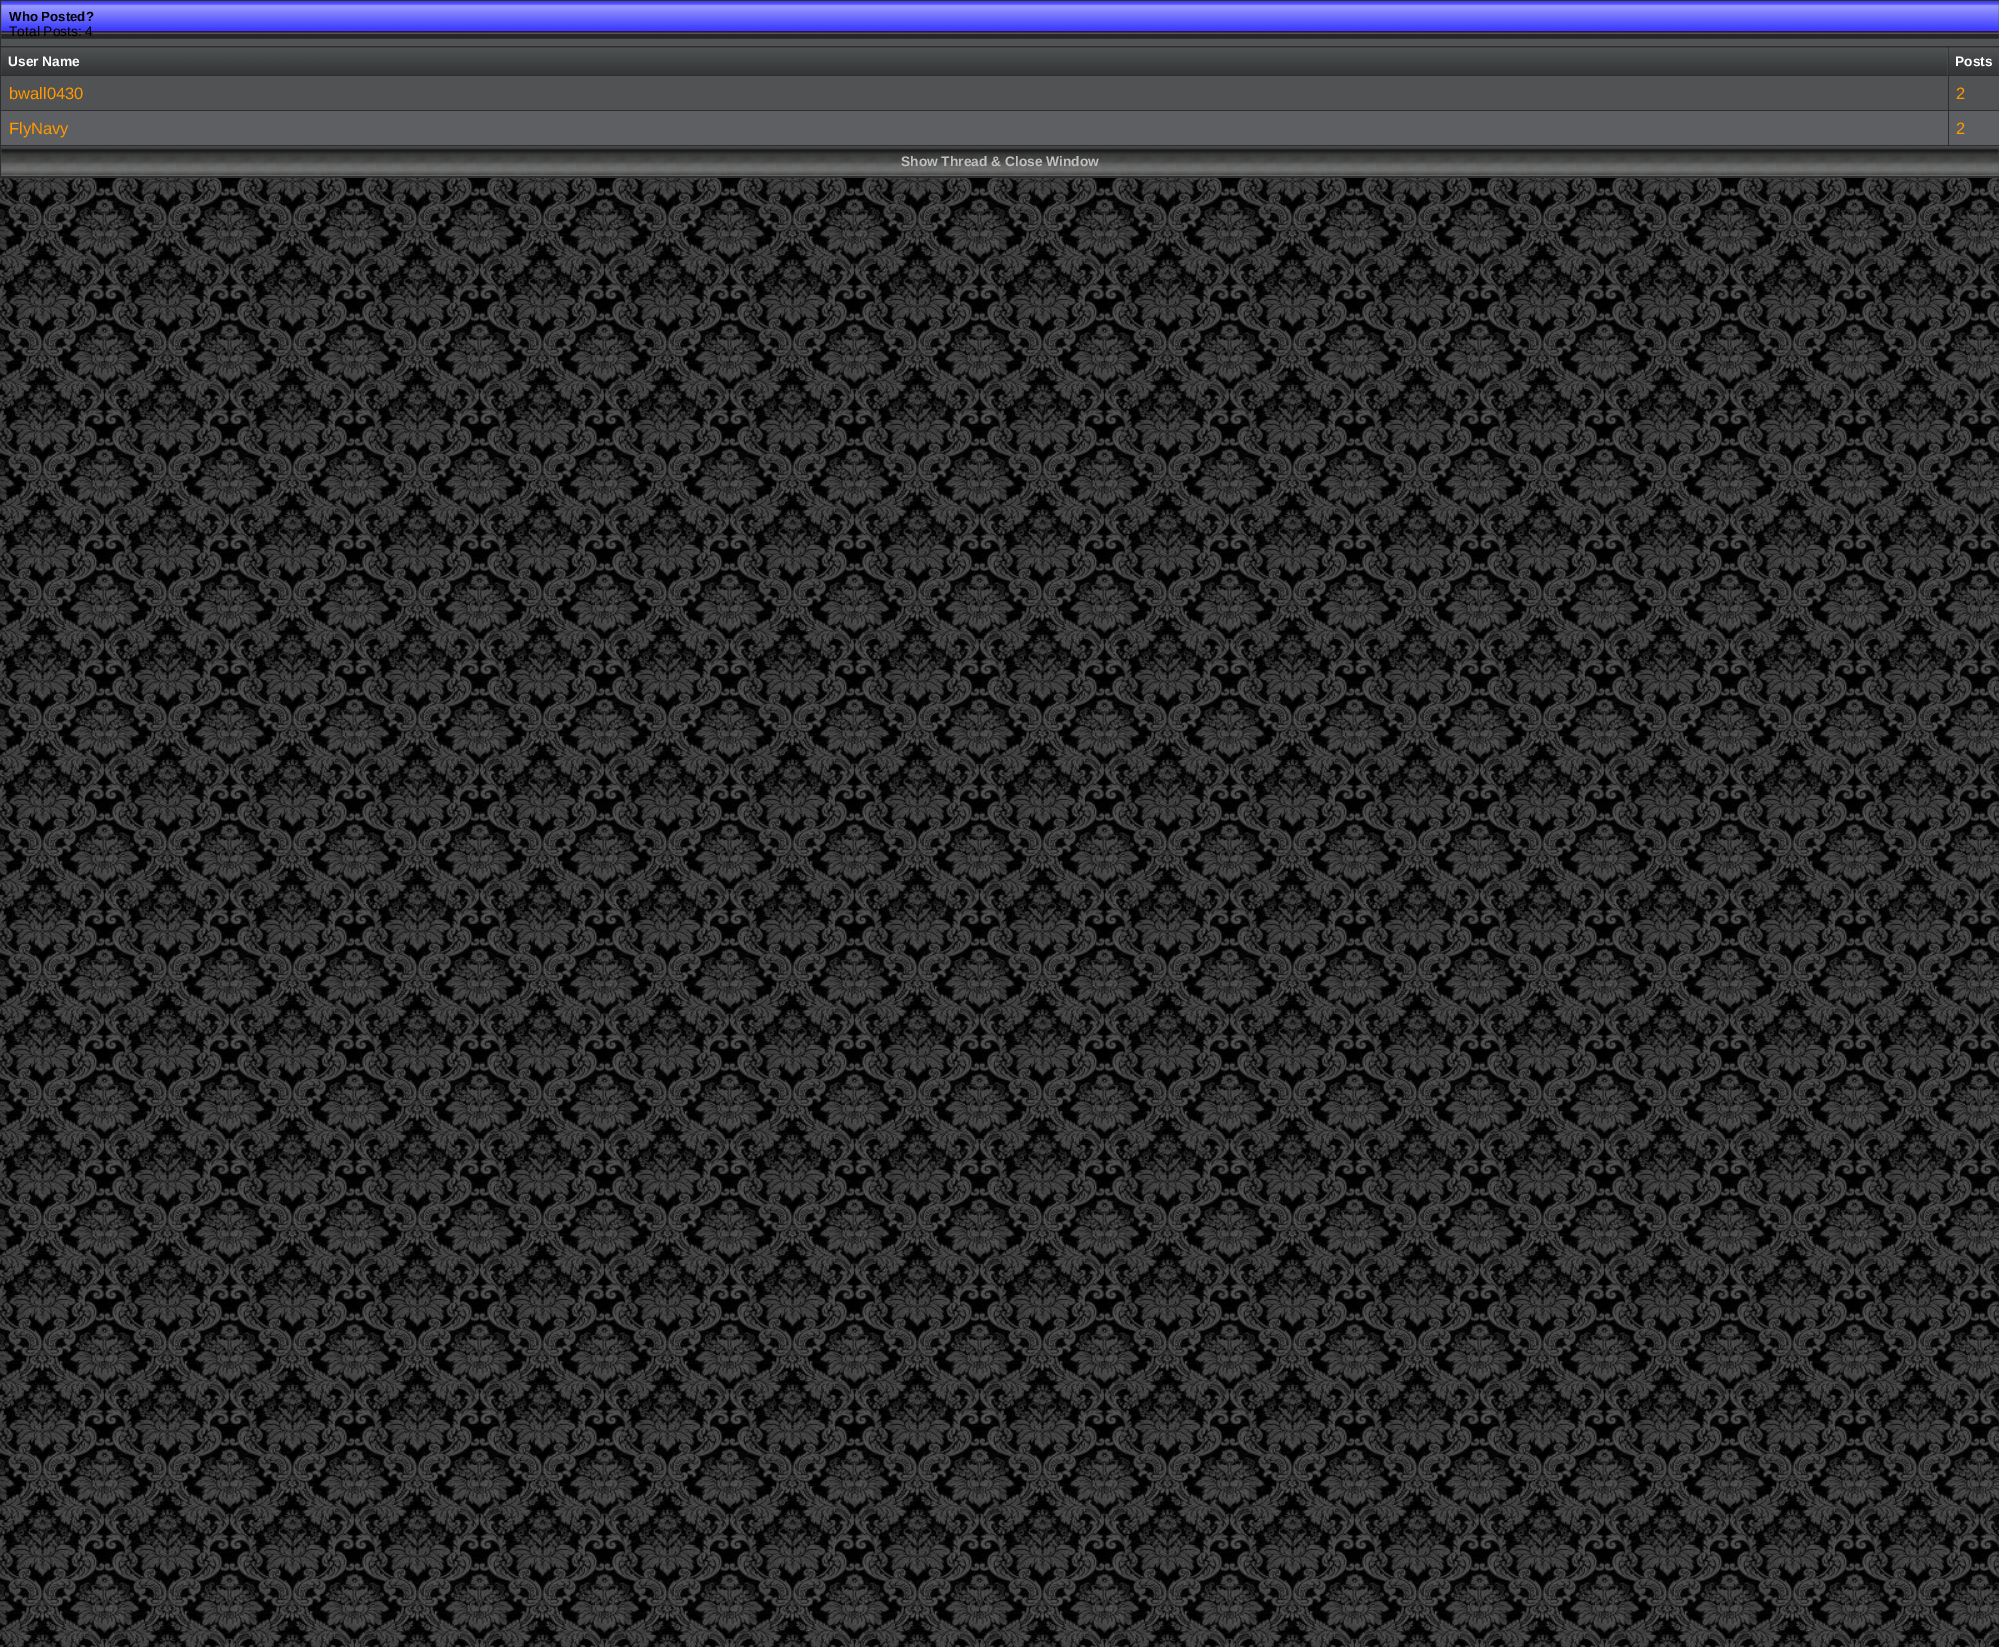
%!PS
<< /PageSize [1999 1647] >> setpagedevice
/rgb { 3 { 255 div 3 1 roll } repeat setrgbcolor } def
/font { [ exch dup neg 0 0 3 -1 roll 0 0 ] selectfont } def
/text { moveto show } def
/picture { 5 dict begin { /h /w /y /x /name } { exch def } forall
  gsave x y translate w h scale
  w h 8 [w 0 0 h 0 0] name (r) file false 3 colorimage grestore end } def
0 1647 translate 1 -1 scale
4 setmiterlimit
255 255 255 rgb
0 0 1999 1647 rectfill
(img_01.rgb) 0 178 1999 1469 picture
45 46 48 rgb
0 0 1999 178 rectfill
81 82 84 rgb
1 1 1998 45 rectfill
(img_02.rgb) 1 1 1998 38 picture
1 48 1947 27 rectfill
(img_03.rgb) 1 47 1947 28 picture
(img_04.rgb) 1948 47 51 28 picture
1 76 1947 34 rectfill
1949 76 50 34 rectfill
93 95 98 rgb
1 111 1947 34 rectfill
1949 111 50 34 rectfill
81 82 84 rgb
1 146 1998 30 rectfill
(img_05.rgb) 1 146 1998 30 picture
/LiberationSans-Bold 13.25 font
0 0 0 rgb
(Who Posted?) 9 21 text
/LiberationSans-Regular 13.75 font
(Total Posts: 4) 9 36 text
/LiberationSans-Bold 13.75 font
255 255 255 rgb
(User Name) 8 66 text
(Posts) 1955 66 text
/LiberationSans-Regular 16.5 font
255 153 0 rgb
(bwall0430) 9 99 text
(2) 1956 99 text
(FlyNavy) 9 134 text
(2) 1956 134 text
/LiberationSans-Bold 13.75 font
193 192 192 rgb
(Show Thread & Close Window) 901 166 text
showpage
